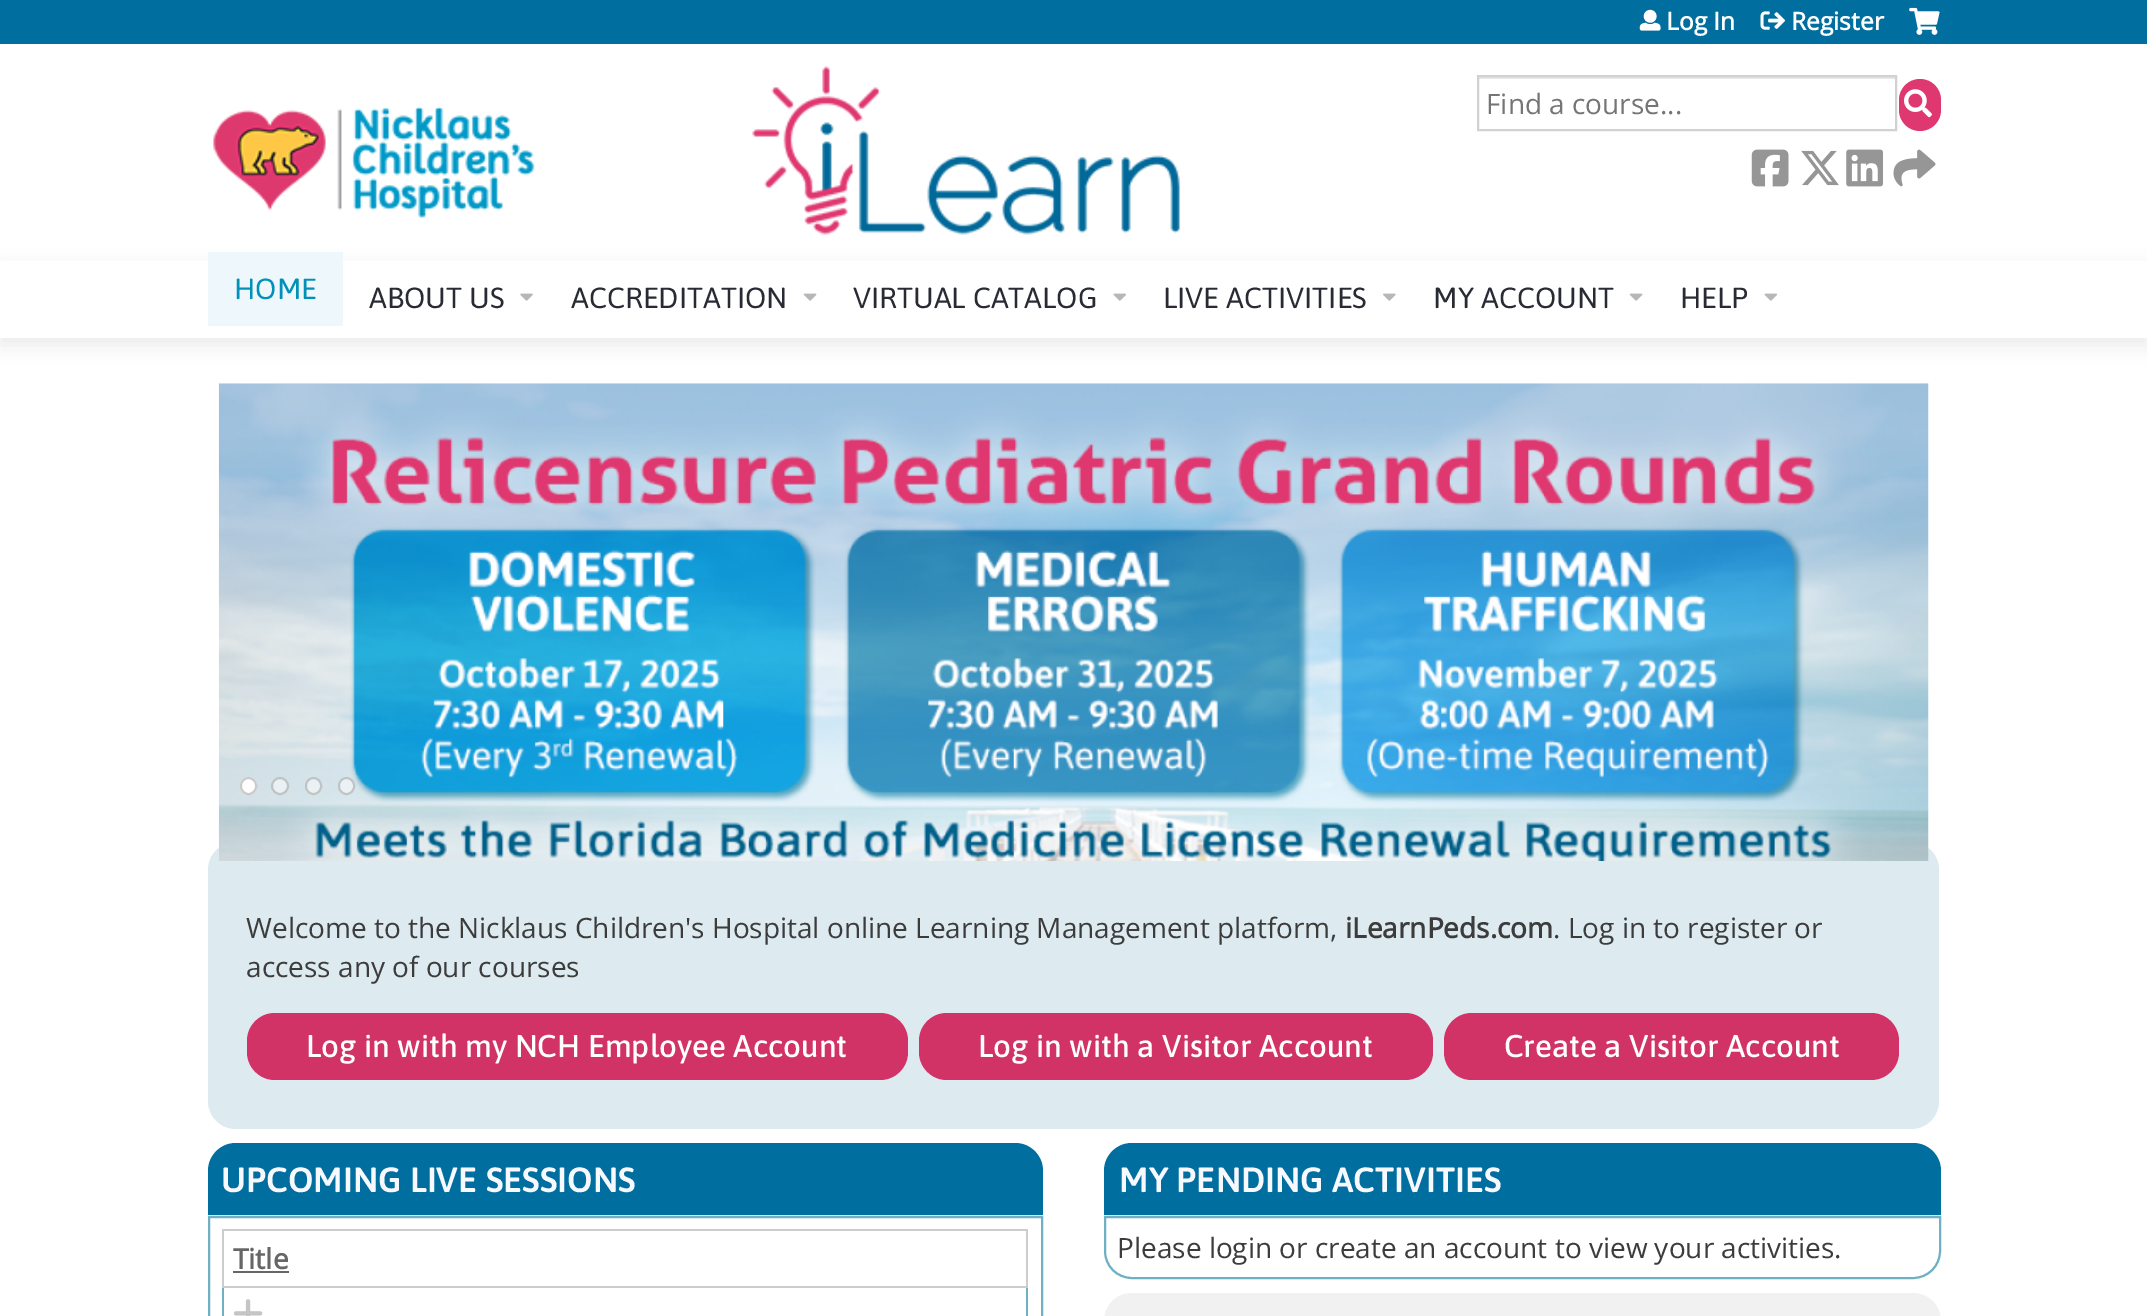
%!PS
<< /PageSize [2147 1316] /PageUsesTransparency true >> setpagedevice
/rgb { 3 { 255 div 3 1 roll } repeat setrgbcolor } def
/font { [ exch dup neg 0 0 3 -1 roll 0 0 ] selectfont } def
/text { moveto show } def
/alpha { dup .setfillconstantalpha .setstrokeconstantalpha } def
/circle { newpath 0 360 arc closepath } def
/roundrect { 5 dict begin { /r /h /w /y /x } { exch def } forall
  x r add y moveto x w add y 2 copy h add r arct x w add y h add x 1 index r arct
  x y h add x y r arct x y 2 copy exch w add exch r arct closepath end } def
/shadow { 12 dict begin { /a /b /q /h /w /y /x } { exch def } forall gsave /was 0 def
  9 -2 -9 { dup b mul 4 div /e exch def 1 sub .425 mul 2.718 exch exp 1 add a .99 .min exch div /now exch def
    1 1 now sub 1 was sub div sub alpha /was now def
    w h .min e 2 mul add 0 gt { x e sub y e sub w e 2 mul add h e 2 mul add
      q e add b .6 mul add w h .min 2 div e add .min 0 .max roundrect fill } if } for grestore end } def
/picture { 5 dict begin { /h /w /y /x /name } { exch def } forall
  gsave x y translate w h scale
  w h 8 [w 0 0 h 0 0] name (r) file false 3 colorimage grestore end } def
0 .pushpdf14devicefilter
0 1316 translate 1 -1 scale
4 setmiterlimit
255 255 255 rgb
0 0 2147 1316 rectfill
0 110 159 rgb
0 0 2147 44 rectfill
(img_01.rgb) 213 66 967 169 picture
(img_02.rgb) 1639 9 22 22 picture
(img_03.rgb) 1760 11 25 19 picture
(img_04.rgb) 1909 7 31 28 picture
223 55 111 rgb
1899 79 42 52 21 roundrect fill
230 230 230 rgb
1479 77 416 2 rectfill
209 209 209 rgb
2 setlinewidth
1478 76 418 54 rectstroke
(img_05.rgb) 1904 89 28 29 picture
(img_06.rgb) 1751 149 38 38 picture
(img_07.rgb) 1801 150 38 36 picture
(img_08.rgb) 1846 149 37 38 picture
(img_09.rgb) 1893 149 43 38 picture
0 0 0 rgb
0 268 2147 77 0 9 0.08 shadow
255 255 255 rgb
0 261 2147 77 rectfill
238 247 251 rgb
208 252 135 74 rectfill
(img_10.rgb) 520 293 13 8 picture
(img_11.rgb) 803 293 14 8 picture
(img_12.rgb) 1113 293 14 8 picture
(img_13.rgb) 1383 293 13 8 picture
(img_11.rgb) 1629 293 14 8 picture
(img_12.rgb) 1764 293 14 8 picture
221 234 239 rgb
208 842 1731 287 28 roundrect fill
(img_14.rgb) 218 383 1711 478 picture
255 255 255 rgb
240 777 17 18 8.5 roundrect fill
0.5 alpha
150 150 150 rgb
241 778 15 16 7.5 roundrect stroke
255 255 255 rgb
280 786 9 circle fill
150 150 150 rgb
280 786 8 circle stroke
255 255 255 rgb
305 777 17 18 8.5 roundrect fill
150 150 150 rgb
306 778 15 16 7.5 roundrect stroke
255 255 255 rgb
338 777 17 18 8.5 roundrect fill
150 150 150 rgb
339 778 15 16 7.5 roundrect stroke
1 alpha
210 51 102 rgb
247 1013 661 67 28 roundrect fill
919 1013 514 67 28 roundrect fill
1444 1013 455 67 28 roundrect fill
0 110 158 rgb
236 1143 moveto 779 0 rlineto 15.5 0 28 12.5 28 28 rcurveto 0 45 rlineto -835 0 rlineto 0 -45 rlineto 0 -15.5 12.5 -28 28 -28 rcurveto closepath fill
210 233 245 rgb
208 1215 835 1 rectfill
111 177 195 rgb
209 1217 833 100 rectstroke
204 204 204 rgb
222 1229 805 2 rectfill
111 177 195 rgb
1026 1286 2 30 rectfill
204 204 204 rgb
1026 1229 2 59 rectfill
111 177 195 rgb
222 1286 2 30 rectfill
204 204 204 rgb
222 1286 805 2 rectfill
222 1229 2 59 rectfill
102 102 102 rgb
233 1271 56 2 rectfill
(img_15.rgb) 233 1299 30 17 picture
0 110 158 rgb
1132 1143 moveto 781 0 rlineto 15.5 0 28 12.5 28 28 rcurveto 0 45 rlineto -837 0 rlineto 0 -45 rlineto 0 -15.5 12.5 -28 28 -28 rcurveto closepath fill
210 233 245 rgb
1104 1215 837 1 rectfill
111 177 195 rgb
1105 1217 moveto 835 0 rlineto 0 34 rlineto 0 15 -12 27 -27 27 rcurveto -781 0 rlineto -15 0 -27 -12 -27 -27 rcurveto closepath stroke
241 241 241 rgb
1104 1293 837 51 28 roundrect fill
/OpenSans-Bold 24.5 font
255 255 255 rgb
(Log In) 1666 30 text
(Register) 1791 30 text
/OpenSans-Regular 28 font
117 117 117 rgb
(Find a course...) 1486 114 text
/Asap-Regular 29.1 font
0 144 185 rgb
(HOME) 234 299 text
41 43 52 rgb
(ABOUT US) 369 308 text
(ACCREDITATION) 571 308 text
(VIRTUAL CATALOG) 853 308 text
(LIVE ACTIVITIES) 1163 308 text
(MY ACCOUNT) 1433 308 text
(HELP) 1680 308 text
/OpenSans-Regular 28 font
60 60 60 rgb
(Welcome to the Nicklaus Children's Hospital online Learning Management platform,) 246 938 text
/OpenSans-Bold 28 font
(iLearnPeds.com) 1345 938 text
/OpenSans-Regular 28 font
(. Log in to register or) 1553 938 text
(access any of our courses) 246 977 text
/Asap-Medium 31.5 font
255 255 255 rgb
(Log in with my NCH Employee Account) 306 1057 text
(Log in with a Visitor Account) 978 1057 text
(Create a Visitor Account) 1504 1057 text
/Asap-SemiBold 35 font
248 248 255 rgb
(UPCOMING LIVE SESSIONS) 221 1192 text
/OpenSans-Bold 28 font
102 102 102 rgb
(Title) 233 1269 text
/Asap-SemiBold 35 font
248 248 255 rgb
(MY PENDING ACTIVITIES) 1119 1192 text
/OpenSans-Regular 28 font
60 60 60 rgb
(Please login or create an account to view your activities.) 1117 1258 text
.poppdf14devicefilter showpage
